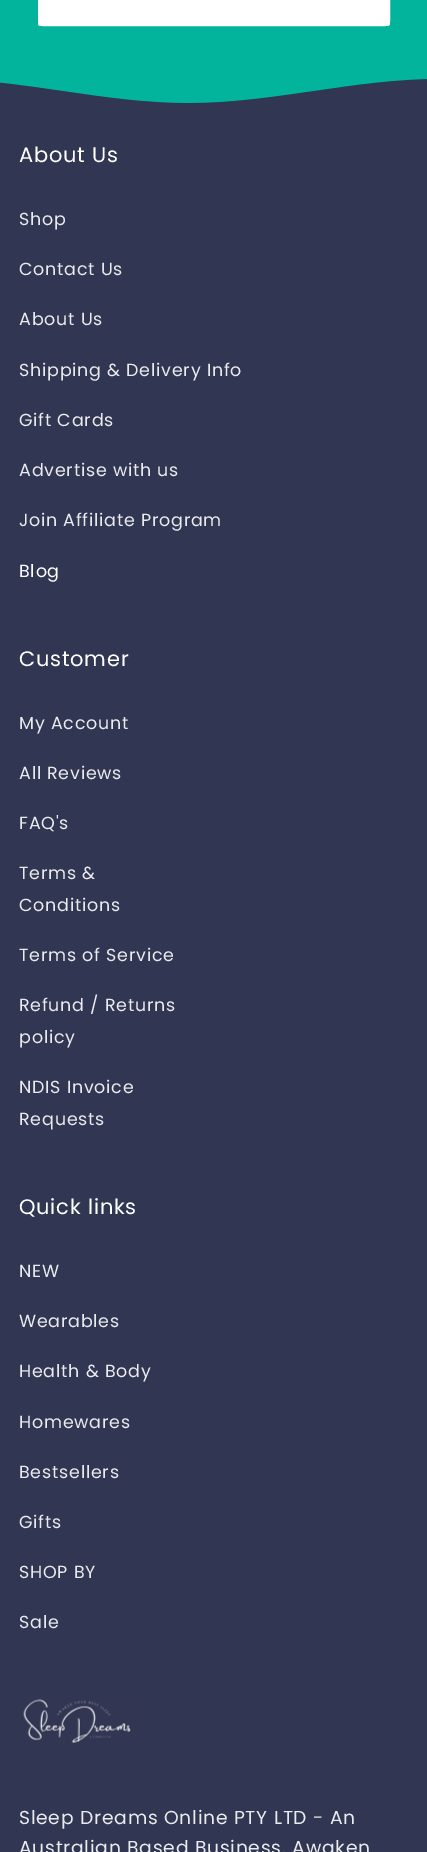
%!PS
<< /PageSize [427 1852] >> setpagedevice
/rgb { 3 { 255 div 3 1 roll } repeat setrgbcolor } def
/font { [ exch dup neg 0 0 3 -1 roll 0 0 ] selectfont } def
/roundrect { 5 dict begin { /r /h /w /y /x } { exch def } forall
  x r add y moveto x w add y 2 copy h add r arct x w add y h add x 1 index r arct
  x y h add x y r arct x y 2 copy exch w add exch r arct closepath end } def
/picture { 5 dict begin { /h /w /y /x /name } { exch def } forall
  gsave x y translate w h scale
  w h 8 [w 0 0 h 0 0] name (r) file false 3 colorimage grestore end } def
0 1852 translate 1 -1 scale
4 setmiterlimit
49 54 82 rgb
0 0 427 1852 rectfill
2 180 156 rgb
0 0 427 104 rectfill
255 255 255 rgb
3 setlinewidth
39.5 -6.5 349 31 3.5 roundrect stroke
38 -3 352 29 2.5 roundrect fill
(img_01.rgb) 0 79 427 34 picture
(img_02.rgb) 23 1699 108 44 picture
/Poppins-Regular 21 font
19 162 moveto 0.75 0 (About Us) ashow
/Poppins-Regular 17.5 font
234 235 238 rgb
19 225 moveto 0.75 0 (Shop) ashow
19 275 moveto 0.75 0 (Contact Us) ashow
19 325 moveto 0.75 0 (About Us) ashow
19 376 moveto 0.75 0 (Shipping & Delivery Info) ashow
19 426 moveto 0.75 0 (Gift Cards) ashow
19 476 moveto 0.75 0 (Advertise with us) ashow
19 526 moveto 0.75 0 (Join Affiliate Program) ashow
255 255 255 rgb
19 577 moveto 0.75 0 (Blog) ashow
/Poppins-Regular 21 font
19 666 moveto 0.75 0 (Customer) ashow
/Poppins-Regular 17.5 font
234 235 238 rgb
19 729 moveto 0.75 0 (My Account) ashow
19 779 moveto 0.75 0 (All Reviews) ashow
19 829 moveto 0.75 0 (FAQ's) ashow
19 879 moveto 0.75 0 (Terms &) ashow
19 911 moveto 0.75 0 (Conditions) ashow
19 961 moveto 0.75 0 (Terms of Service) ashow
19 1011 moveto 0.75 0 (Refund / Returns) ashow
19 1043 moveto 0.75 0 (policy) ashow
19 1093 moveto 0.75 0 (NDIS Invoice) ashow
19 1125 moveto 0.75 0 (Requests) ashow
/Poppins-Regular 21 font
255 255 255 rgb
19 1214 moveto 0.75 0 (Quick links) ashow
/Poppins-Regular 17.5 font
234 235 238 rgb
19 1277 moveto 0.75 0 (NEW) ashow
19 1327 moveto 0.75 0 (Wearables) ashow
19 1377 moveto 0.75 0 (Health & Body) ashow
19 1428 moveto 0.75 0 (Homewares) ashow
19 1478 moveto 0.75 0 (Bestsellers) ashow
19 1528 moveto 0.75 0 (Gifts) ashow
19 1578 moveto 0.75 0 (SHOP BY) ashow
19 1628 moveto 0.75 0 (Sale) ashow
/Poppins-Regular 18.75 font
19 1824 moveto 0.75 0 (Sleep Dreams Online PTY LTD - An) ashow
19 1854 moveto 0.75 0 (Australian Based Business. Awaken) ashow
showpage
